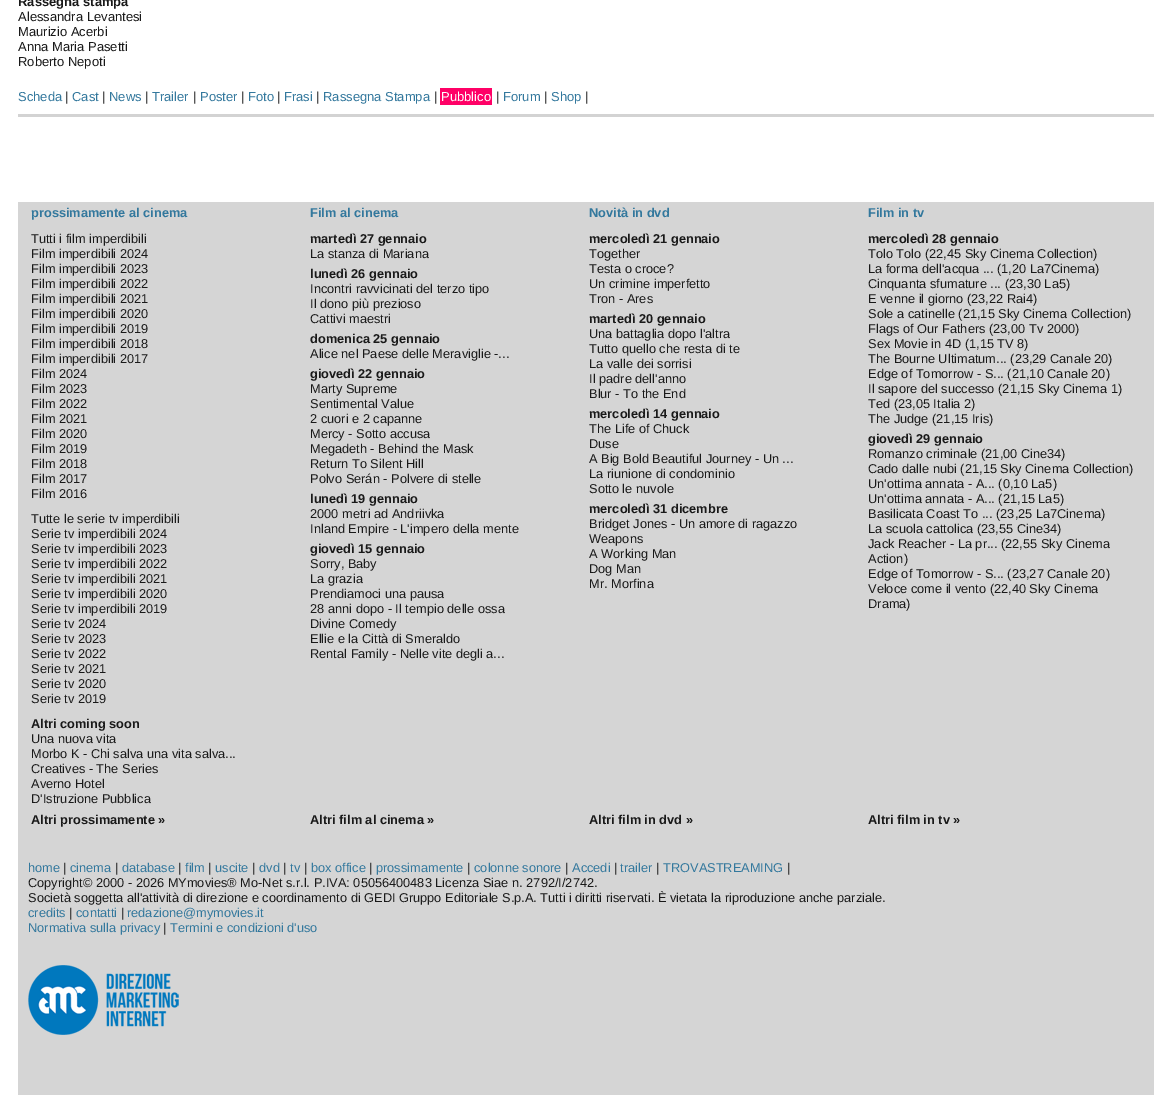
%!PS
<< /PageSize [1172 1105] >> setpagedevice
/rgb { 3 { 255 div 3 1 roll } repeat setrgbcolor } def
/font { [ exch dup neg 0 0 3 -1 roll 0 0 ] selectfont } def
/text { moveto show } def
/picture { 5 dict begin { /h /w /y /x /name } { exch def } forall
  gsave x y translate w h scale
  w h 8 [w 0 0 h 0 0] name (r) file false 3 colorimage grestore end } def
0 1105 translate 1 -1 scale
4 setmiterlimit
255 255 255 rgb
0 0 1172 1105 rectfill
255 0 102 rgb
440 88 52 17 rectfill
211 211 211 rgb
18 114 1136 3 rectfill
213 213 213 rgb
18 202 1136 893 rectfill
(img_01.rgb) 28 965 151 70 picture
/LiberationSans-Bold 13 font
25 25 25 rgb
(Rassegna stampa) 18 6 text
/LiberationSans-Regular 13 font
(Alessandra Levantesi) 18 21 text
(Maurizio Acerbi) 18 36 text
(Anna Maria Pasetti) 18 51 text
(Roberto Nepoti) 18 66 text
51 120 157 rgb
(Scheda) 18 101 text
25 25 25 rgb
(|) 65 101 text
51 120 157 rgb
(Cast) 72 101 text
25 25 25 rgb
(|) 102 101 text
51 120 157 rgb
(News) 109 101 text
25 25 25 rgb
(|) 145 101 text
51 120 157 rgb
(Trailer) 152 101 text
25 25 25 rgb
(|) 193 101 text
51 120 157 rgb
(Poster) 200 101 text
25 25 25 rgb
(|) 241 101 text
51 120 157 rgb
(Foto) 248 101 text
25 25 25 rgb
(|) 277 101 text
51 120 157 rgb
(Frasi) 284 101 text
25 25 25 rgb
(|) 316 101 text
51 120 157 rgb
(Rassegna Stampa) 323 101 text
25 25 25 rgb
(|) 434 101 text
255 255 255 rgb
(Pubblico) 441 101 text
25 25 25 rgb
(|) 496 101 text
51 120 157 rgb
(Forum) 503 101 text
25 25 25 rgb
(|) 544 101 text
51 120 157 rgb
(Shop) 551 101 text
25 25 25 rgb
(|) 585 101 text
/LiberationSans-Bold 12.8 font
51 120 157 rgb
(prossimamente al cinema) 31 217 text
(Film al cinema) 310 217 text
(Novità in dvd) 589 217 text
(Film in tv) 868 217 text
/LiberationSans-Regular 12.8 font
25 25 25 rgb
(Tutti i film imperdibili) 31 243 text
(Film imperdibili 2024) 31 258 text
(Film imperdibili 2023) 31 273 text
(Film imperdibili 2022) 31 288 text
(Film imperdibili 2021) 31 303 text
(Film imperdibili 2020) 31 318 text
(Film imperdibili 2019) 31 333 text
(Film imperdibili 2018) 31 348 text
(Film imperdibili 2017) 31 363 text
(Film 2024) 31 378 text
(Film 2023) 31 393 text
(Film 2022) 31 408 text
(Film 2021) 31 423 text
(Film 2020) 31 438 text
(Film 2019) 31 453 text
(Film 2018) 31 468 text
(Film 2017) 31 483 text
(Film 2016) 31 498 text
(Tutte le serie tv imperdibili) 31 523 text
(Serie tv imperdibili 2024) 31 538 text
(Serie tv imperdibili 2023) 31 553 text
(Serie tv imperdibili 2022) 31 568 text
(Serie tv imperdibili 2021) 31 583 text
(Serie tv imperdibili 2020) 31 598 text
(Serie tv imperdibili 2019) 31 613 text
(Serie tv 2024) 31 628 text
(Serie tv 2023) 31 643 text
(Serie tv 2022) 31 658 text
(Serie tv 2021) 31 673 text
(Serie tv 2020) 31 688 text
(Serie tv 2019) 31 703 text
/LiberationSans-Bold 12.8 font
(Altri coming soon) 31 728 text
/LiberationSans-Regular 12.8 font
(Una nuova vita) 31 743 text
(Morbo K - Chi salva una vita salva...) 31 758 text
(Creatives - The Series) 31 773 text
(Averno Hotel) 31 788 text
(D'Istruzione Pubblica) 31 803 text
/LiberationSans-Bold 12.8 font
(martedì 27 gennaio) 310 243 text
/LiberationSans-Regular 12.8 font
(La stanza di Mariana) 310 258 text
/LiberationSans-Bold 12.8 font
(lunedì 26 gennaio) 310 278 text
/LiberationSans-Regular 12.8 font
(Incontri ravvicinati del terzo tipo) 310 293 text
(Il dono più prezioso) 310 308 text
(Cattivi maestri) 310 323 text
/LiberationSans-Bold 12.8 font
(domenica 25 gennaio) 310 343 text
/LiberationSans-Regular 12.8 font
(Alice nel Paese delle Meraviglie -...) 310 358 text
/LiberationSans-Bold 12.8 font
(giovedì 22 gennaio) 310 378 text
/LiberationSans-Regular 12.8 font
(Marty Supreme) 310 393 text
(Sentimental Value) 310 408 text
(2 cuori e 2 capanne) 310 423 text
(Mercy - Sotto accusa) 310 438 text
(Megadeth - Behind the Mask) 310 453 text
(Return To Silent Hill) 310 468 text
(Polvo Serán - Polvere di stelle) 310 483 text
/LiberationSans-Bold 12.8 font
(lunedì 19 gennaio) 310 503 text
/LiberationSans-Regular 12.8 font
(2000 metri ad Andriivka) 310 518 text
(Inland Empire - L'impero della mente) 310 533 text
/LiberationSans-Bold 12.8 font
(giovedì 15 gennaio) 310 553 text
/LiberationSans-Regular 12.8 font
(Sorry, Baby) 310 568 text
(La grazia) 310 583 text
(Prendiamoci una pausa) 310 598 text
(28 anni dopo - Il tempio delle ossa) 310 613 text
(Divine Comedy) 310 628 text
(Ellie e la Città di Smeraldo) 310 643 text
(Rental Family - Nelle vite degli a...) 310 658 text
/LiberationSans-Bold 12.8 font
(mercoledì 21 gennaio) 589 243 text
/LiberationSans-Regular 12.8 font
(Together) 589 258 text
(Testa o croce?) 589 273 text
(Un crimine imperfetto) 589 288 text
(Tron - Ares) 589 303 text
/LiberationSans-Bold 12.8 font
(martedì 20 gennaio) 589 323 text
/LiberationSans-Regular 12.8 font
(Una battaglia dopo l'altra) 589 338 text
(Tutto quello che resta di te) 589 353 text
(La valle dei sorrisi) 589 368 text
(Il padre dell'anno) 589 383 text
(Blur - To the End) 589 398 text
/LiberationSans-Bold 12.8 font
(mercoledì 14 gennaio) 589 418 text
/LiberationSans-Regular 12.8 font
(The Life of Chuck) 589 433 text
(Duse) 589 448 text
(A Big Bold Beautiful Journey - Un ...) 589 463 text
(La riunione di condominio) 589 478 text
(Sotto le nuvole) 589 493 text
/LiberationSans-Bold 12.8 font
(mercoledì 31 dicembre) 589 513 text
/LiberationSans-Regular 12.8 font
(Bridget Jones - Un amore di ragazzo) 589 528 text
(Weapons) 589 543 text
(A Working Man) 589 558 text
(Dog Man) 589 573 text
(Mr. Morfina) 589 588 text
/LiberationSans-Bold 12.8 font
(mercoledì 28 gennaio) 868 243 text
/LiberationSans-Regular 12.8 font
(Tolo Tolo \(22,45 Sky Cinema Collection\)) 868 258 text
(La forma dell'acqua ... \(1,20 La7Cinema\)) 868 273 text
(Cinquanta sfumature ... \(23,30 La5\)) 868 288 text
(E venne il giorno \(23,22 Rai4\)) 868 303 text
(Sole a catinelle \(21,15 Sky Cinema Collection\)) 868 318 text
(Flags of Our Fathers \(23,00 Tv 2000\)) 868 333 text
(Sex Movie in 4D \(1,15 TV 8\)) 868 348 text
(The Bourne Ultimatum... \(23,29 Canale 20\)) 868 363 text
(Edge of Tomorrow - S... \(21,10 Canale 20\)) 868 378 text
(Il sapore del successo \(21,15 Sky Cinema 1\)) 868 393 text
(Ted \(23,05 Italia 2\)) 868 408 text
(The Judge \(21,15 Iris\)) 868 423 text
/LiberationSans-Bold 12.8 font
(giovedì 29 gennaio) 868 443 text
/LiberationSans-Regular 12.8 font
(Romanzo criminale \(21,00 Cine34\)) 868 458 text
(Cado dalle nubi \(21,15 Sky Cinema Collection\)) 868 473 text
(Un'ottima annata - A... \(0,10 La5\)) 868 488 text
(Un'ottima annata - A... \(21,15 La5\)) 868 503 text
(Basilicata Coast To ... \(23,25 La7Cinema\)) 868 518 text
(La scuola cattolica \(23,55 Cine34\)) 868 533 text
(Jack Reacher - La pr... \(22,55 Sky Cinema) 868 548 text
(Action\)) 868 563 text
(Edge of Tomorrow - S... \(23,27 Canale 20\)) 868 578 text
(Veloce come il vento \(22,40 Sky Cinema) 868 593 text
(Drama\)) 868 608 text
/LiberationSans-Bold 12.8 font
(Altri prossimamente ») 31 824 text
(Altri film al cinema ») 310 824 text
(Altri film in dvd ») 589 824 text
(Altri film in tv ») 868 824 text
/LiberationSans-Regular 12.8 font
51 120 157 rgb
(home) 28 872 text
25 25 25 rgb
(|) 63 872 text
51 120 157 rgb
(cinema) 70 872 text
25 25 25 rgb
(|) 115 872 text
51 120 157 rgb
(database) 122 872 text
25 25 25 rgb
(|) 178 872 text
51 120 157 rgb
(film) 185 872 text
25 25 25 rgb
(|) 208 872 text
51 120 157 rgb
(uscite) 215 872 text
25 25 25 rgb
(|) 252 872 text
51 120 157 rgb
(dvd) 259 872 text
25 25 25 rgb
(|) 283 872 text
51 120 157 rgb
(tv) 290 872 text
25 25 25 rgb
(|) 304 872 text
51 120 157 rgb
(box office) 311 872 text
25 25 25 rgb
(|) 369 872 text
51 120 157 rgb
(prossimamente) 376 872 text
25 25 25 rgb
(|) 467 872 text
51 120 157 rgb
(colonne sonore) 474 872 text
25 25 25 rgb
(|) 565 872 text
51 120 157 rgb
(Accedi) 572 872 text
25 25 25 rgb
(|) 614 872 text
51 120 157 rgb
(trailer) 620 872 text
25 25 25 rgb
(|) 656 872 text
51 120 157 rgb
(TROVASTREAMING) 663 872 text
25 25 25 rgb
(|) 787 872 text
(Copyright© 2000 - 2026 MYmovies® Mo-Net s.r.l. P.IVA: 05056400483 Licenza Siae n. 2792/I/2742.) 28 887 text
(Società soggetta all'attività di direzione e coordinamento di GEDI Gruppo Editoriale S.p.A. Tutti i diritti riservati. È vietata la riproduzione anche parziale.) 28 902 text
51 120 157 rgb
(credits) 28 917 text
25 25 25 rgb
(|) 69 917 text
51 120 157 rgb
(contatti) 76 917 text
25 25 25 rgb
(|) 121 917 text
51 120 157 rgb
(redazione@mymovies.it) 127 917 text
(Normativa sulla privacy) 28 932 text
25 25 25 rgb
(|) 163 932 text
51 120 157 rgb
(Termini e condizioni d'uso) 170 932 text
showpage
